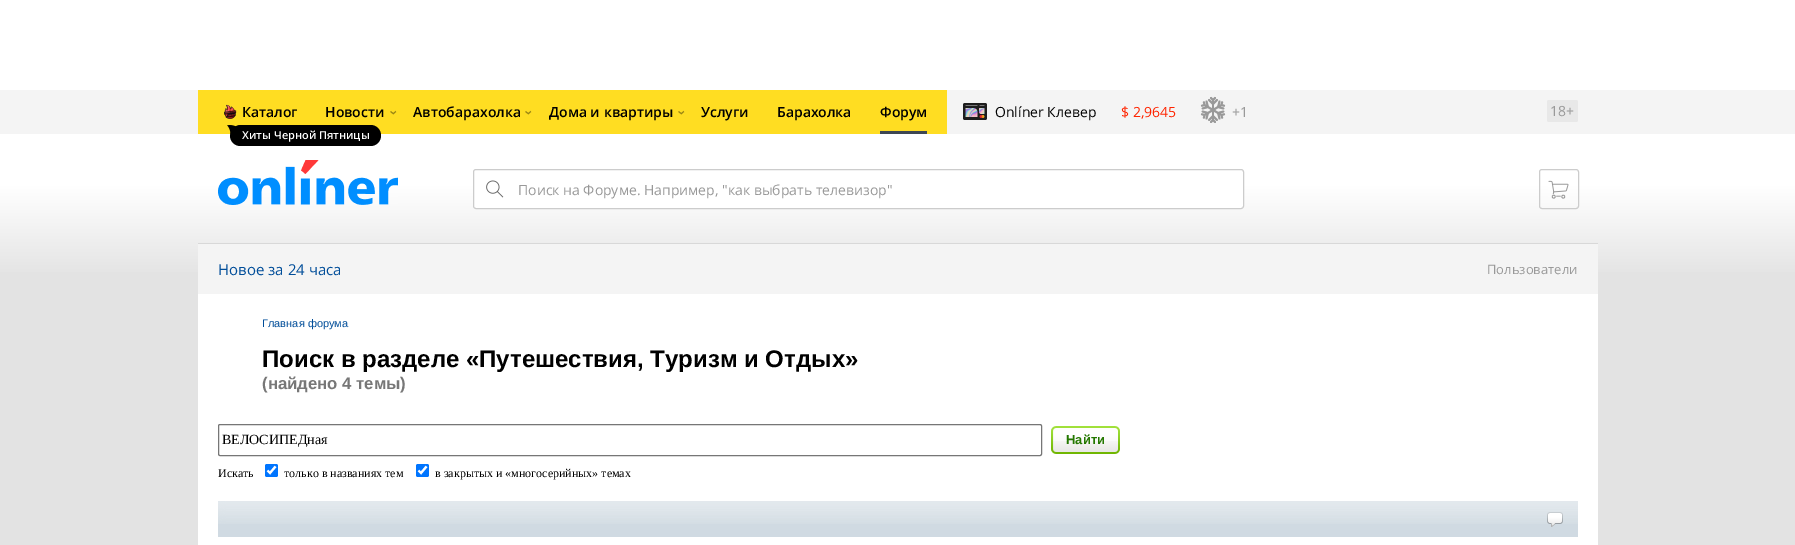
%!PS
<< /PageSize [1795 545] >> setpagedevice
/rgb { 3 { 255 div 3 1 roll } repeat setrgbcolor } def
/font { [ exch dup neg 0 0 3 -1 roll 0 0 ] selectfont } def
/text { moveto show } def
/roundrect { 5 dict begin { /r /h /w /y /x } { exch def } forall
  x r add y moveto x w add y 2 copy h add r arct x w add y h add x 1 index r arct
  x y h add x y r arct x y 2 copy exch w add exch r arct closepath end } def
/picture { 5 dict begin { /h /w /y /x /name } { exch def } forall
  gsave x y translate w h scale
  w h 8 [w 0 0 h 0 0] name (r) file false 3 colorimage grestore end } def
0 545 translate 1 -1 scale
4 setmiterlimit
227 227 227 rgb
0 0 1795 545 rectfill
255 255 255 rgb
0 0 1795 90 rectfill
gsave 0 134 moveto 1795 0 rlineto 0 138 rlineto -1795 0 rlineto closepath clip newpath
<< /ShadingType 2 /ColorSpace /DeviceRGB /Coords [898 90 898 280] /Extend [true true] /Function << /FunctionType 3 /Domain [0 1] /Functions [<< /FunctionType 2 /Domain [0 1] /C0 [1 1 1] /C1 [1 1 1] /N 1 >> << /FunctionType 2 /Domain [0 1] /C0 [1 1 1] /C1 [0.89 0.89 0.89] /N 1 >>] /Bounds [0.5] /Encode [0 1 0 1] >> >> shfill grestore
244 244 244 rgb
0 90 1795 44 rectfill
255 221 34 rgb
198 90 749 44 rectfill
(img_01.rgb) 224 104 13 15 picture
0 0 0 rgb
230 125 151 21 10.5 roundrect fill
(img_02.rgb) 227 125 13 10 picture
62 71 83 rgb
880 131 47 3 rectfill
(img_03.rgb) 963 103 24 17 picture
(img_04.rgb) 1200 96 26 27 picture
232 232 232 rgb
1547 100 31 22 2 roundrect fill
(img_05.rgb) 218 160 180 45 picture
255 255 255 rgb
473 169 771 40 3 roundrect fill
(img_06.rgb) 486 180 18 18 picture
204 204 204 rgb
473.5 169.5 770 39 2.5 roundrect stroke
1539.5 169.5 39 39 2.5 roundrect stroke
(img_07.rgb) 1548 180 21 19 picture
255 255 255 rgb
198 294 1400 251 rectfill
216 216 216 rgb
198 243 1400 1 rectfill
244 244 244 rgb
198 244 1400 50 rectfill
118 118 118 rgb
218.5 424.5 823 31 1.5 roundrect stroke
(img_08.rgb) 1051 426 7 28 picture
(img_09.rgb) 1058 426 62 28 picture
0 117 255 rgb
265 464 13 13 2 roundrect fill
255 255 255 rgb
2.1 setlinewidth
267.5 470.5 moveto 2.5 2.5 rlineto 5.5 -6.5 rlineto stroke
0 117 255 rgb
416 464 13 13 2 roundrect fill
255 255 255 rgb
418.5 470.5 moveto 2.5 2.5 rlineto 5.5 -6.5 rlineto stroke
208 218 226 rgb
218 524 1360 13 rectfill
(img_10.rgb) 218 501 1360 23 picture
(img_11.rgb) 1547 512 16 15 picture
/OpenSans-SemiBold 14 font
0 0 0 rgb
(Каталог) 242 117 text
/OpenSans-SemiBold 11 font
255 255 255 rgb
(Хиты Черной Пятницы) 242 139 text
/OpenSans-SemiBold 14 font
0 0 0 rgb
(Автобарахолка) 413 117 text
153 133 20 rgb
gsave 532 115 translate -90 rotate 0 0 moveto (‹) show grestore
0 0 0 rgb
(Форум) 880 117 text
(Новости) 325 117 text
153 133 20 rgb
gsave 397 115 translate -90 rotate 0 0 moveto (‹) show grestore
0 0 0 rgb
(Дома и квартиры) 549 117 text
153 133 20 rgb
gsave 685 115 translate -90 rotate 0 0 moveto (‹) show grestore
0 0 0 rgb
(Услуги) 701 117 text
(Барахолка) 777 117 text
/OpenSans-Regular 14 font
(Onlíner Клевер) 995 117 text
255 36 0 rgb
($ 2,9645) 1121 117 text
153 153 153 rgb
(+1) 1232 117 text
(18+) 1550 116 text
(Поиск на Форуме. Например, "как выбрать телевизор") 518 195 text
/OpenSans-Regular 15 font
0 77 153 rgb
(Новое за 24 часа) 218 275 text
/OpenSans-Regular 13 font
153 153 153 rgb
(Пользователи) 1487 274 text
/LiberationSans-Regular 11 font
0 77 153 rgb
(Главная форума) 262 327 text
/LiberationSans-Bold 24 font
0 0 0 rgb
(Поиск в разделе «Путешествия, Туризм и Отдых») 262 367 text
/LiberationSans-Bold 16.75 font
119 119 119 rgb
(\(найдено 4 темы\)) 262 389 text
/LiberationSerif-Regular 14 font
0 0 0 rgb
(ВЕЛОСИПЕДная) 222 444 text
/LiberationSans-Bold 13 font
37 120 0 rgb
(Найти) 1066 444 text
/LiberationSerif-Regular 12 font
0 0 0 rgb
(Искать) 218 477 text
(только в названиях тем) 284 477 text
(в закрытых и «многосерийных» темах) 435 477 text
showpage
